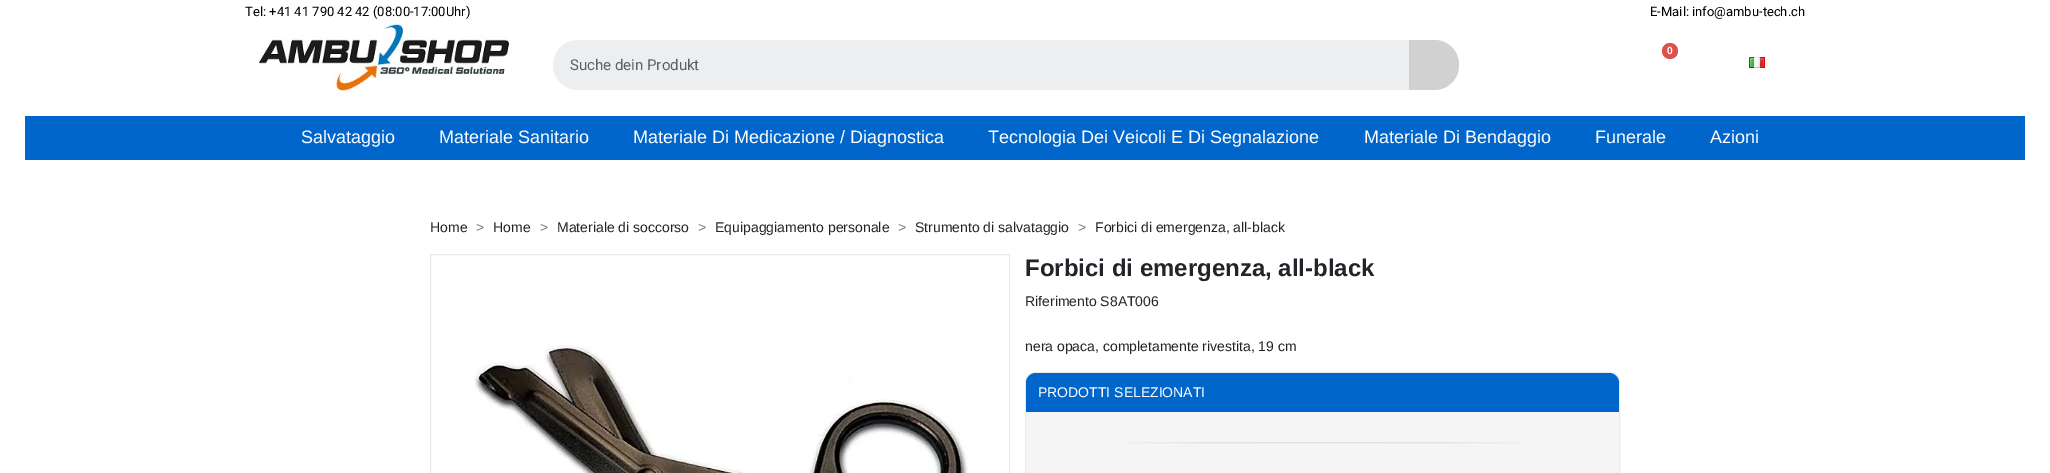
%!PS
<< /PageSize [2050 473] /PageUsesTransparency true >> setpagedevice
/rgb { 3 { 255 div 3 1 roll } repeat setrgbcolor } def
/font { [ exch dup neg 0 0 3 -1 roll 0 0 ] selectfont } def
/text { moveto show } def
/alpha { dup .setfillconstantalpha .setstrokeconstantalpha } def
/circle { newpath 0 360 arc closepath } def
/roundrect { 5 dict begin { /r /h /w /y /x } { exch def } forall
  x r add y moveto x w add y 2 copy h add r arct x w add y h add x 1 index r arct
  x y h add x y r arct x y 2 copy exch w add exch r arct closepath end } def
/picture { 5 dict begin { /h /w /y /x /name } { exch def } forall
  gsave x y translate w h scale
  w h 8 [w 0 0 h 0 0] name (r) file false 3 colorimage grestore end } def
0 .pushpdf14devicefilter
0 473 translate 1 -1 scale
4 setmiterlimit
255 255 255 rgb
0 0 2050 473 rectfill
(img_01.rgb) 259 24 250 67 picture
217 83 79 rgb
1670 51 8 circle fill
(img_02.rgb) 1749 57 16 11 picture
236 238 239 rgb
553 40 906 50 25 roundrect fill
0.93 alpha
207 207 207 rgb
1409 40 moveto 25 0 rlineto 14 0 25 11 25 25 rcurveto 0 14 -11 25 -25 25 rcurveto -25 0 rlineto closepath fill
1 alpha
0 102 204 rgb
25 116 2000 44 rectfill
233 233 233 rgb
430.5 254.5 579 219 rectstroke
(img_03.rgb) 474 345 494 128 picture
245 245 245 rgb
1035 372.5 moveto 575 0 rlineto 5 0 9.5 4.5 9.5 9.5 rcurveto 0 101.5 rlineto -594 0 rlineto 0 -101.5 rlineto 0 -5 4.5 -9.5 9.5 -9.5 rcurveto closepath gsave fill grestore
233 233 233 rgb
stroke
0 102 204 rgb
1036 373 moveto 573 0 rlineto 5.5 0 10 4.5 10 10 rcurveto 0 29 rlineto -593 0 rlineto 0 -29 rlineto 0 -5.5 4.5 -10 10 -10 rcurveto closepath fill
(img_04.rgb) 1125 442 396 2 picture
/Roboto-Regular 13 font
0 0 0 rgb
(Tel: +41 41 790 42 42 \(08:00-17:00Uhr\)) 245 16 text
(E-Mail: info@ambu-tech.ch) 1650 16 text
/Roboto-SemiBold 10 font
255 255 255 rgb
(0) 1667 54 text
/Roboto-Regular 15 font
94 95 96 rgb
(Suche dein Produkt) 570 70 text
/LiberationSans-Regular 18 font
255 255 255 rgb
(Salvataggio) 301 143 text
(Materiale Sanitario) 439 143 text
(Materiale Di Medicazione / Diagnostica) 633 143 text
(Tecnologia Dei Veicoli E Di Segnalazione) 988 143 text
(Materiale Di Bendaggio) 1364 143 text
(Funerale) 1595 143 text
(Azioni) 1710 143 text
/LiberationSans-Regular 14 font
35 35 35 rgb
(Home) 430 232 text
122 122 122 rgb
(>) 476 232 text
35 35 35 rgb
(Home) 493 232 text
122 122 122 rgb
(>) 540 232 text
35 35 35 rgb
(Materiale di soccorso) 557 232 text
122 122 122 rgb
(>) 698 232 text
35 35 35 rgb
(Equipaggiamento personale) 715 232 text
122 122 122 rgb
(>) 898 232 text
35 35 35 rgb
(Strumento di salvataggio) 915 232 text
122 122 122 rgb
(>) 1078 232 text
35 35 35 rgb
(Forbici di emergenza, all-black) 1095 232 text
/LiberationSans-Bold 24 font
33 37 41 rgb
(Forbici di emergenza, all-black) 1025 276 text
/LiberationSans-Regular 14 font
(Riferimento S8AT006) 1025 306 text
35 35 35 rgb
(nera opaca, completamente rivestita, 19 cm) 1025 351 text
255 255 255 rgb
(PRODOTTI SELEZIONATI) 1038 397 text
.poppdf14devicefilter showpage
